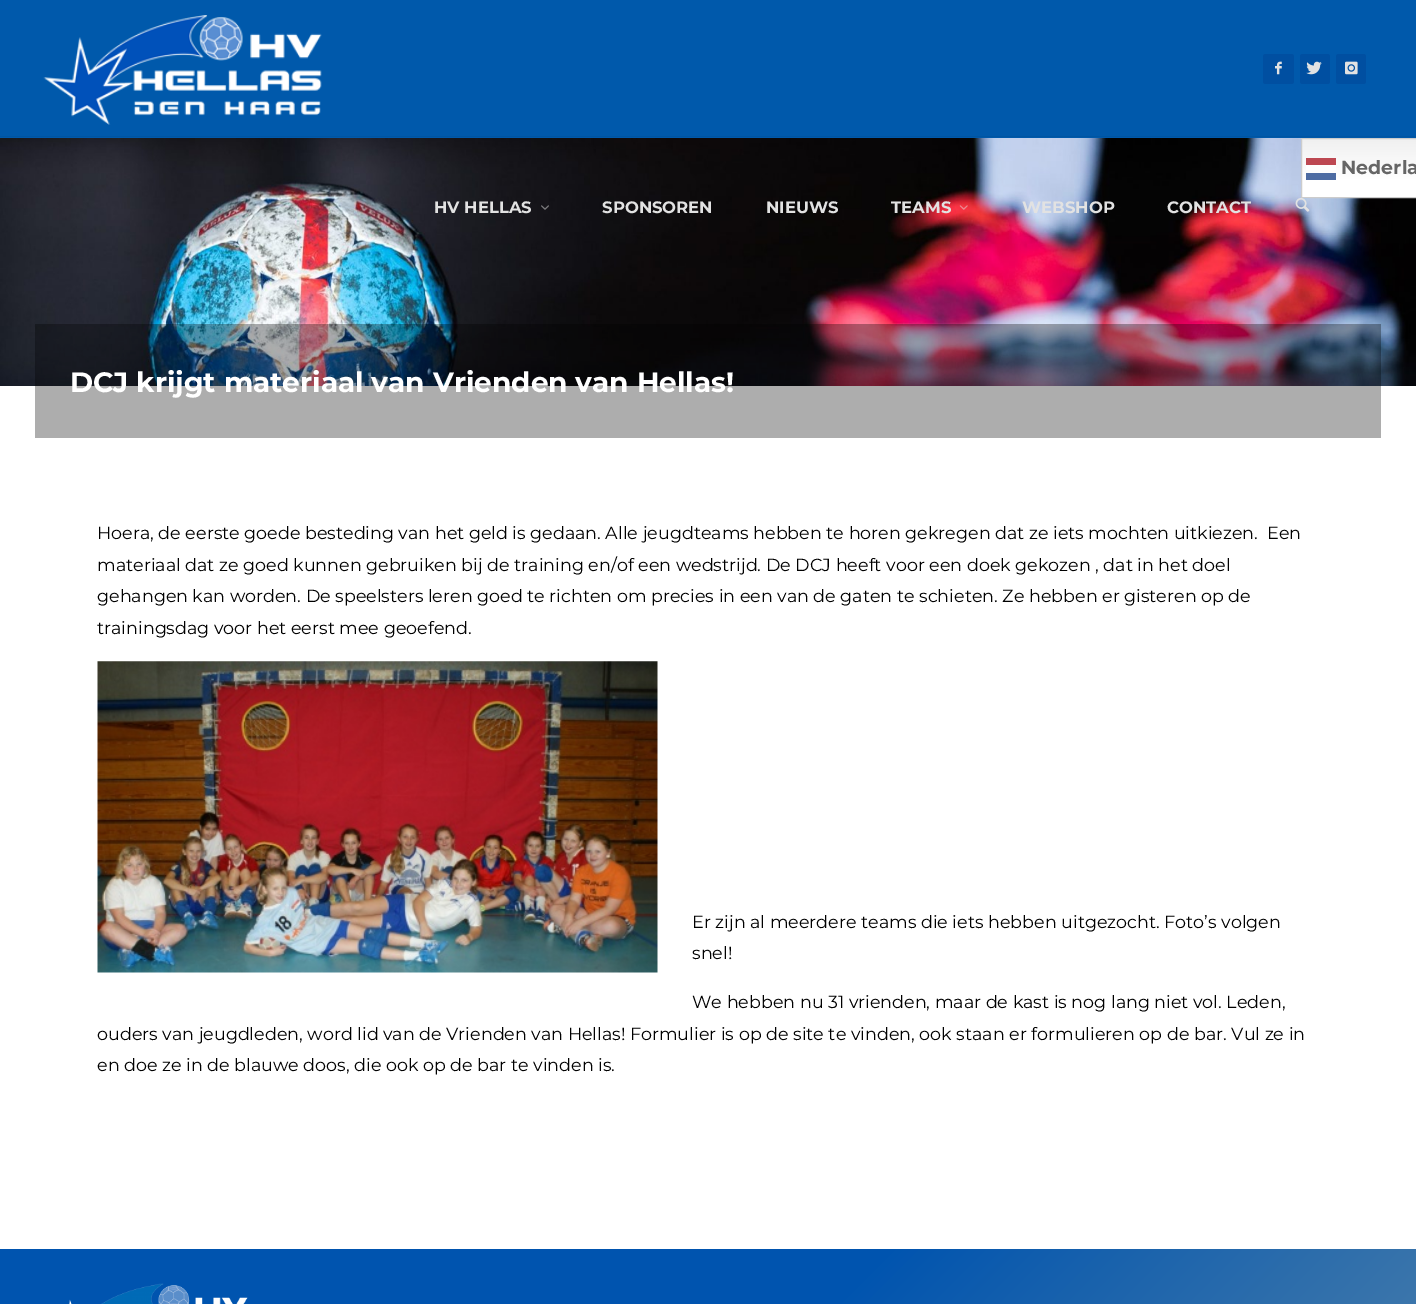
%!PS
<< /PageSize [1416 1304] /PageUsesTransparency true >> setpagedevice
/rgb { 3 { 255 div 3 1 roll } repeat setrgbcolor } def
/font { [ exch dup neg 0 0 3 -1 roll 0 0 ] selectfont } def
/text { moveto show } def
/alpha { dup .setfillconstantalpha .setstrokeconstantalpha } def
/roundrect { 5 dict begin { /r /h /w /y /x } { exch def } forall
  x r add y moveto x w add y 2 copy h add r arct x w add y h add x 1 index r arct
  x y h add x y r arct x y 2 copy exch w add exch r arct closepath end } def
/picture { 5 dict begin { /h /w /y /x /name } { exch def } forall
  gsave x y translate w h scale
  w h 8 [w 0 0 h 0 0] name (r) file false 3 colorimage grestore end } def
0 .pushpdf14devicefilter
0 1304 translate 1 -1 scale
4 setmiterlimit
0 89 171 rgb
0 0 1416 1304 rectfill
0 85 162 rgb
0 136 1416 1 rectfill
(img_01.rgb) 43 15 279 110 picture
0 79 161 rgb
1263 54 31 30 2.5 roundrect fill
(img_02.rgb) 1275 61 7 14 picture
1300 54 30 30 2.5 roundrect fill
(img_03.rgb) 1306 61 16 14 picture
1336 54 30 30 2.5 roundrect fill
(img_04.rgb) 1345 61 13 14 picture
(img_08.rgb) 0 138 1416 248 picture
gsave 1302 139 moveto 114 0 rlineto 0 58 rlineto -114 0 rlineto closepath clip newpath
<< /ShadingType 2 /ColorSpace /DeviceRGB /Coords [1409 137 1409 198] /Extend [true true] /Function << /FunctionType 3 /Domain [0 1] /Functions [<< /FunctionType 2 /Domain [0 1] /C0 [0.937 0.937 0.937] /C1 [1 1 1] /N 1 >> << /FunctionType 2 /Domain [0 1] /C0 [1 1 1] /C1 [1 1 1] /N 1 >>] /Bounds [0.7] /Encode [0 1 0 1] >> >> shfill grestore
204 204 204 rgb
1301.5 138.5 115 59 rectstroke
189 72 82 rgb
1306 158 30 7 rectfill
0.8 alpha
255 255 255 rgb
1306 165 30 5 rectfill
1 alpha
77 107 162 rgb
1306 173 30 7 rectfill
(img_05.rgb) 541 205 8 5 picture
(img_06.rgb) 959 205 9 5 picture
(img_07.rgb) 1295 198 15 14 picture
255 255 255 rgb
0 386 1416 863 rectfill
0.32 alpha
0 0 0 rgb
35 324 1346 114 rectfill
1 alpha
(img_09.rgb) 97 661 561 312 picture
gsave 0 1249 moveto 1416 0 rlineto 0 55 rlineto -1416 0 rlineto closepath clip newpath
<< /ShadingType 2 /ColorSpace /DeviceRGB /Coords [266 983 1150 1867] /Extend [true true] /Function << /FunctionType 3 /Domain [0 1] /Functions [<< /FunctionType 2 /Domain [0 1] /C0 [0 0.329 0.686] /C1 [0 0.329 0.686] /N 1 >> << /FunctionType 2 /Domain [0 1] /C0 [0 0.329 0.686] /C1 [0.357 0.529 0.663] /N 1 >>] /Bounds [0.5] /Encode [0 1 0 1] >> >> shfill grestore
(img_10.rgb) 69 1283 179 21 picture
/Montserrat-Bold 19 font
102 102 102 rgb
(Nederla) 1341 174 text
/Montserrat-Bold 16.5 font
226 226 226 rgb
(HV HELLAS) 434 213 text
(SPONSOREN) 602 213 text
(NIEUWS) 766 213 text
(TEAMS) 891 213 text
(WEBSHOP) 1022 213 text
(CONTACT) 1167 213 text
/Montserrat-Bold 28 font
255 255 255 rgb
(DCJ krijgt materiaal van Vrienden van Hellas!) 70 392 text
/Montserrat-Regular 17.5 font
0 0 0 rgb
(Hoera, de eerste goede besteding van het geld is gedaan. Alle jeugdteams hebben te horen gekregen dat ze iets mochten uitkiezen.  Een) 97 539 text
(materiaal dat ze goed kunnen gebruiken bij de training en/of een wedstrijd. De DCJ heeft voor een doek gekozen , dat in het doel) 97 571 text
(gehangen kan worden. De speelsters leren goed te richten om precies in een van de gaten te schieten. Ze hebben er gisteren op de) 97 602 text
(trainingsdag voor het eerst mee geoefend.) 97 634 text
(Er zijn al meerdere teams die iets hebben uitgezocht. Foto’s volgen) 692 928 text
(snel!) 692 959 text
(We hebben nu 31 vrienden, maar de kast is nog lang niet vol. Leden,) 692 1008 text
(ouders van jeugdleden, word lid van de Vrienden van Hellas! Formulier is op de site te vinden, ook staan er formulieren op de bar. Vul ze in) 97 1040 text
(en doe ze in de blauwe doos, die ook op de bar te vinden is.) 97 1071 text
.poppdf14devicefilter showpage
